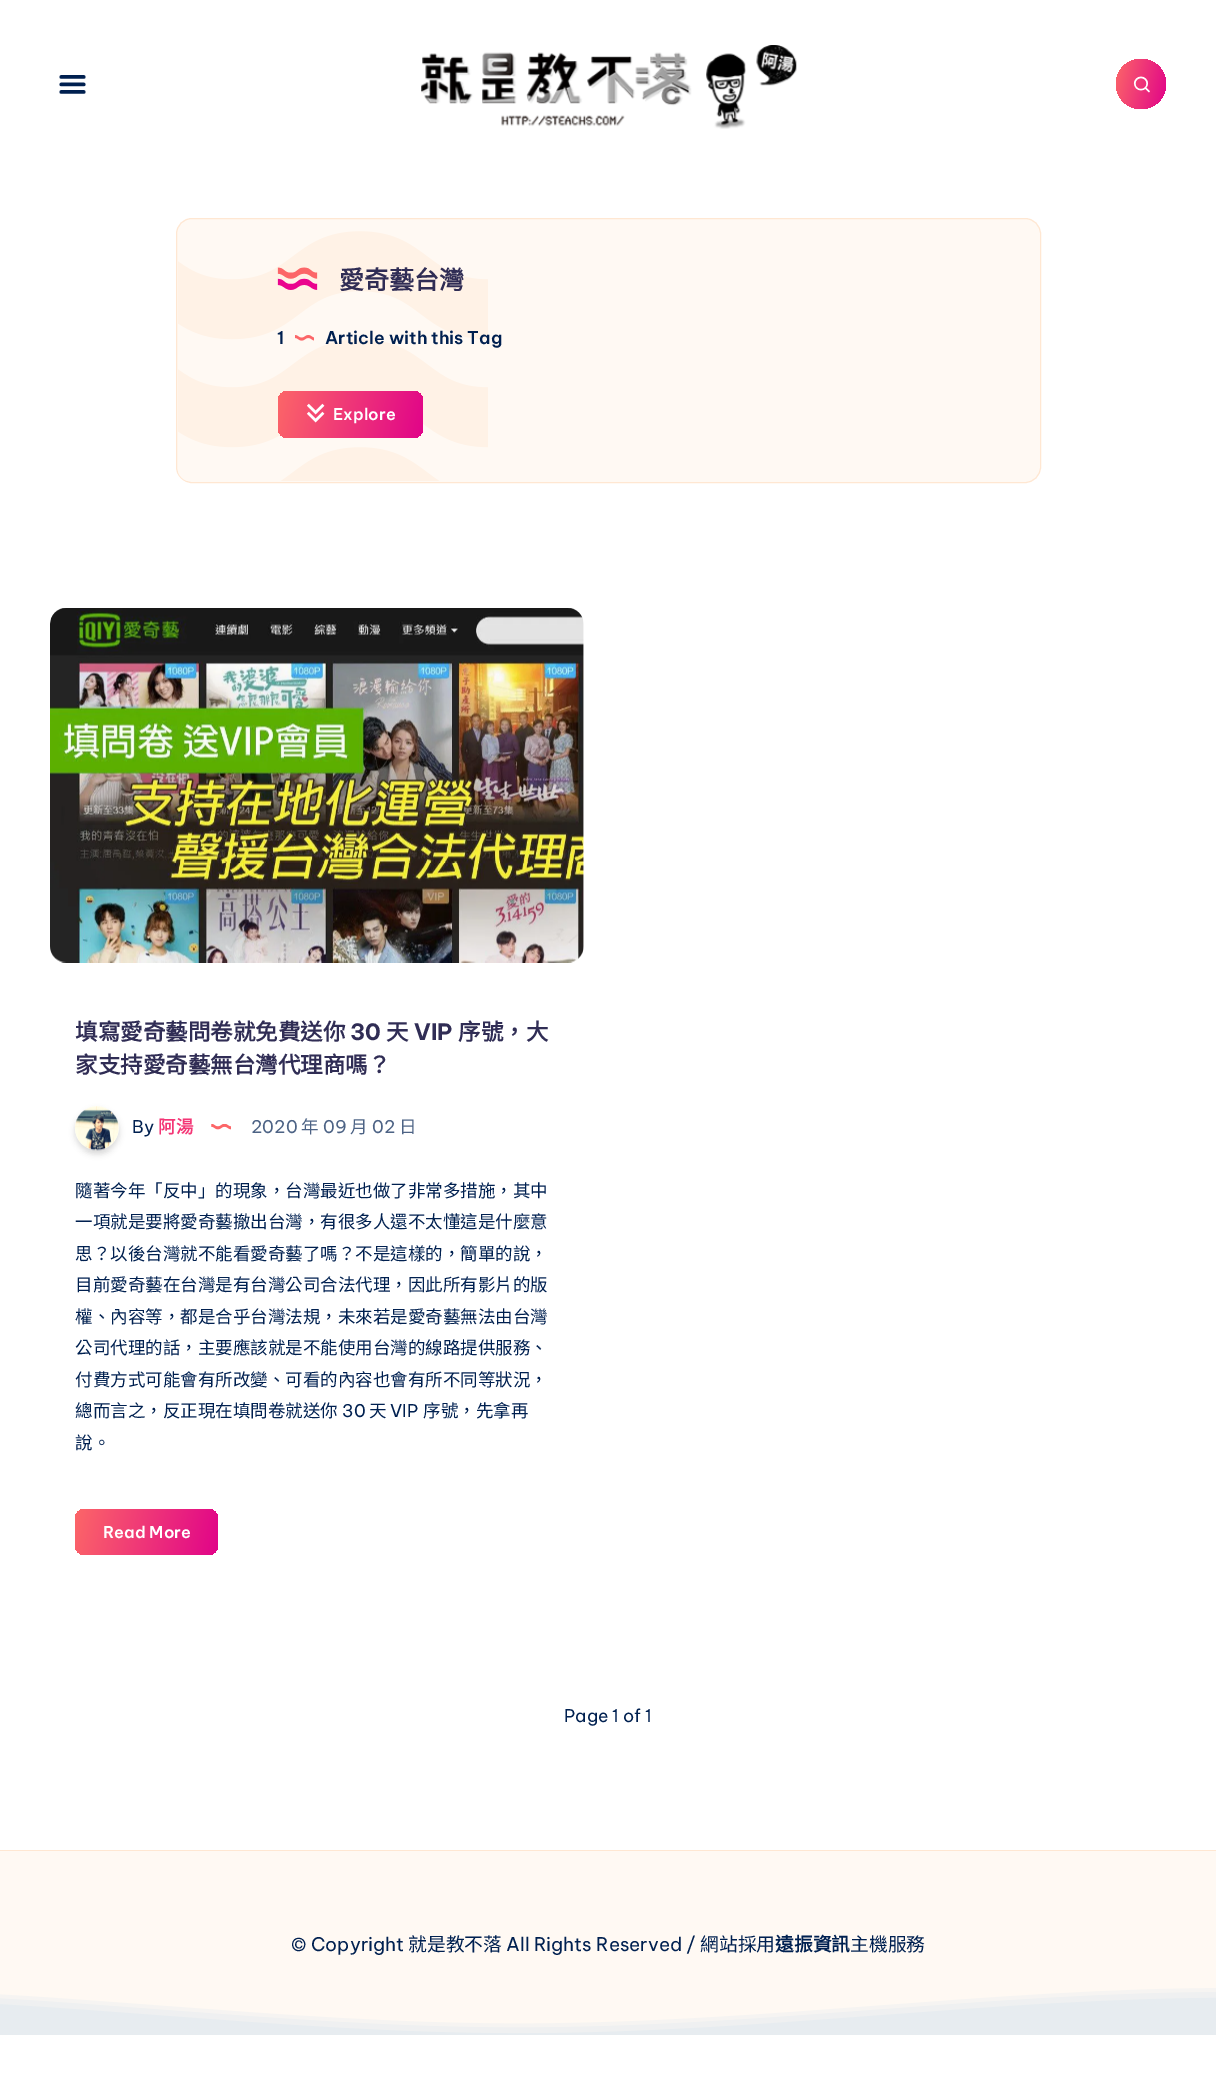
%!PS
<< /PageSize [1216 2083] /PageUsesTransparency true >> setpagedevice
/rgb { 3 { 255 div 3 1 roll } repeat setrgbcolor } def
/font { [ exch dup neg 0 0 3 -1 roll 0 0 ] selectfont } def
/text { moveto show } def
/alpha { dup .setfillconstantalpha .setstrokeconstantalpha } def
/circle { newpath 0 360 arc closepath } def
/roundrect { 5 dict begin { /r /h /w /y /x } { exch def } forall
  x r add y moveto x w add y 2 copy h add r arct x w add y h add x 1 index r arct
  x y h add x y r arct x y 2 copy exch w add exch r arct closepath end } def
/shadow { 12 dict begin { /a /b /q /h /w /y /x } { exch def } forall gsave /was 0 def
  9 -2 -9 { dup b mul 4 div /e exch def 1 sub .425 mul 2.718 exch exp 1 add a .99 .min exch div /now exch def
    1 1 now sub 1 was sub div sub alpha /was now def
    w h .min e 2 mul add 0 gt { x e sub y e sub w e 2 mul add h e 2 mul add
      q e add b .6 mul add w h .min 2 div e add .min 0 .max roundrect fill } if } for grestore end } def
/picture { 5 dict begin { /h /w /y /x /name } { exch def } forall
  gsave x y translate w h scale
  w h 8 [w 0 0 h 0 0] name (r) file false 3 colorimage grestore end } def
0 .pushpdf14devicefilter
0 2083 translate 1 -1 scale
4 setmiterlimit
255 255 255 rgb
0 0 1216 2083 rectfill
(img_01.rgb) 59 75 27 19 picture
(img_02.rgb) 421 45 376 84 picture
gsave 1141 84 25 circle clip newpath
<< /ShadingType 2 /ColorSpace /DeviceRGB /Coords [1112 77 1170 90] /Extend [true true] /Function << /FunctionType 2 /Domain [0 1] /C0 [0.988 0.4 0.408] /C1 [0.882 0.016 0.537] /N 1 >> >> shfill grestore
(img_03.rgb) 1133 76 17 17 picture
255 249 243 rgb
176.5 218.5 864 264 15.5 roundrect gsave fill grestore
255 231 210 rgb
stroke
(img_04.rgb) 178 231 310 250 picture
(img_05.rgb) 277 267 41 23 picture
(img_06.rgb) 295 335 19 6 picture
gsave 278 391 145 47 10 roundrect clip newpath
<< /ShadingType 2 /ColorSpace /DeviceRGB /Coords [276 397 424 431] /Extend [true true] /Function << /FunctionType 2 /Domain [0 1] /C0 [0.988 0.4 0.408] /C1 [0.882 0.016 0.537] /N 1 >> >> shfill grestore
(img_07.rgb) 307 403 18 20 picture
(img_08.rgb) 50 608 534 355 picture
0 0 0 rgb
75 1110 44 44 22 3 0.15 shadow
(img_09.rgb) 75 1106 44 45 picture
(img_10.rgb) 211 1124 20 6 picture
gsave 75 1509 143 46 10 roundrect clip newpath
<< /ShadingType 2 /ColorSpace /DeviceRGB /Coords [74 1515 219 1549] /Extend [true true] /Function << /FunctionType 2 /Domain [0 1] /C0 [0.988 0.4 0.408] /C1 [0.882 0.016 0.537] /N 1 >> >> shfill grestore
255 249 243 rgb
0 1851 1216 184 rectfill
255 231 210 rgb
0 1850 1216 1 rectfill
(img_11.rgb) 0 1988 1216 47 picture
/NotoSansCJKTC-Bold 25 font
48 45 85 rgb
(愛奇藝台灣) 339 289 text
/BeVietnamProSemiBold-SemiBold 17.5 font
0 32 80 rgb
(1) 277 344 text
(Article with this Tag) 325 344 text
/BeVietnamProSemiBold-SemiBold 16.25 font
255 255 255 rgb
(Explore) 333 420 text
/NotoSansCJKTC-Bold 22.5 font
48 45 85 rgb
(填寫愛奇藝問卷就免費送你) 75 1040 text
/BeVietnamPro-Bold 22.5 font
(30) 350 1040 text
/NotoSansCJKTC-Bold 22.5 font
(天) 386 1040 text
/BeVietnamPro-Bold 22.5 font
(VIP) 414 1040 text
/NotoSansCJKTC-Bold 22.5 font
(序號，大) 458 1040 text
(家支持愛奇藝無台灣代理商嗎？) 75 1073 text
/BeVietnamPro-Regular 17.5 font
0 32 80 rgb
(By) 132 1133 text
/NotoSansCJKTC-Bold 17.5 font
244 54 118 rgb
(阿湯) 158 1133 text
/BeVietnamPro-Regular 17.5 font
77 99 133 rgb
(2020) 251 1133 text
/NotoSansCJKTC-Regular 17.5 font
(年) 301 1133 text
/BeVietnamPro-Regular 17.5 font
(09) 323 1133 text
/NotoSansCJKTC-Regular 17.5 font
(月) 350 1133 text
/BeVietnamPro-Regular 17.5 font
(02) 372 1133 text
/NotoSansCJKTC-Regular 17.5 font
(日) 399 1133 text
0 32 80 rgb
(隨著今年「反中」的現象，台灣最近也做了非常多措施，其中) 75 1197 text
(一項就是要將愛奇藝撤出台灣，有很多人還不太懂這是什麼意) 75 1228 text
(思？以後台灣就不能看愛奇藝了嗎？不是這樣的，簡單的說，) 75 1260 text
(目前愛奇藝在台灣是有台灣公司合法代理，因此所有影片的版) 75 1291 text
(權、內容等，都是合乎台灣法規，未來若是愛奇藝無法由台灣) 75 1323 text
(公司代理的話，主要應該就是不能使用台灣的線路提供服務、) 75 1354 text
(付費方式可能會有所改變、可看的內容也會有所不同等狀況，) 75 1386 text
(總而言之，反正現在填問卷就送你) 75 1417 text
/BeVietnamPro-Regular 17.5 font
(30) 342 1417 text
/NotoSansCJKTC-Regular 17.5 font
(天) 369 1417 text
/BeVietnamPro-Regular 17.5 font
(VIP) 390 1417 text
/NotoSansCJKTC-Regular 17.5 font
(序號，先拿再) 423 1417 text
(說。) 75 1449 text
/BeVietnamProSemiBold-SemiBold 16.25 font
255 255 255 rgb
(Read More) 103 1538 text
/BeVietnamPro-Regular 17.5 font
0 32 80 rgb
(Page 1 of 1) 564 1722 text
/BeVietnamPro-Regular 18.75 font
(© Copyright) 291 1951 text
/NotoSansCJKTC-Regular 18.75 font
(就是教不落) 408 1951 text
/BeVietnamPro-Regular 18.75 font
(All Rights Reserved /) 506 1951 text
/NotoSansCJKTC-Regular 18.75 font
(網站採用) 700 1951 text
/NotoSansCJKTC-Bold 18.75 font
(遠振資訊) 775 1951 text
/NotoSansCJKTC-Regular 18.75 font
(主機服務) 850 1951 text
.poppdf14devicefilter showpage
